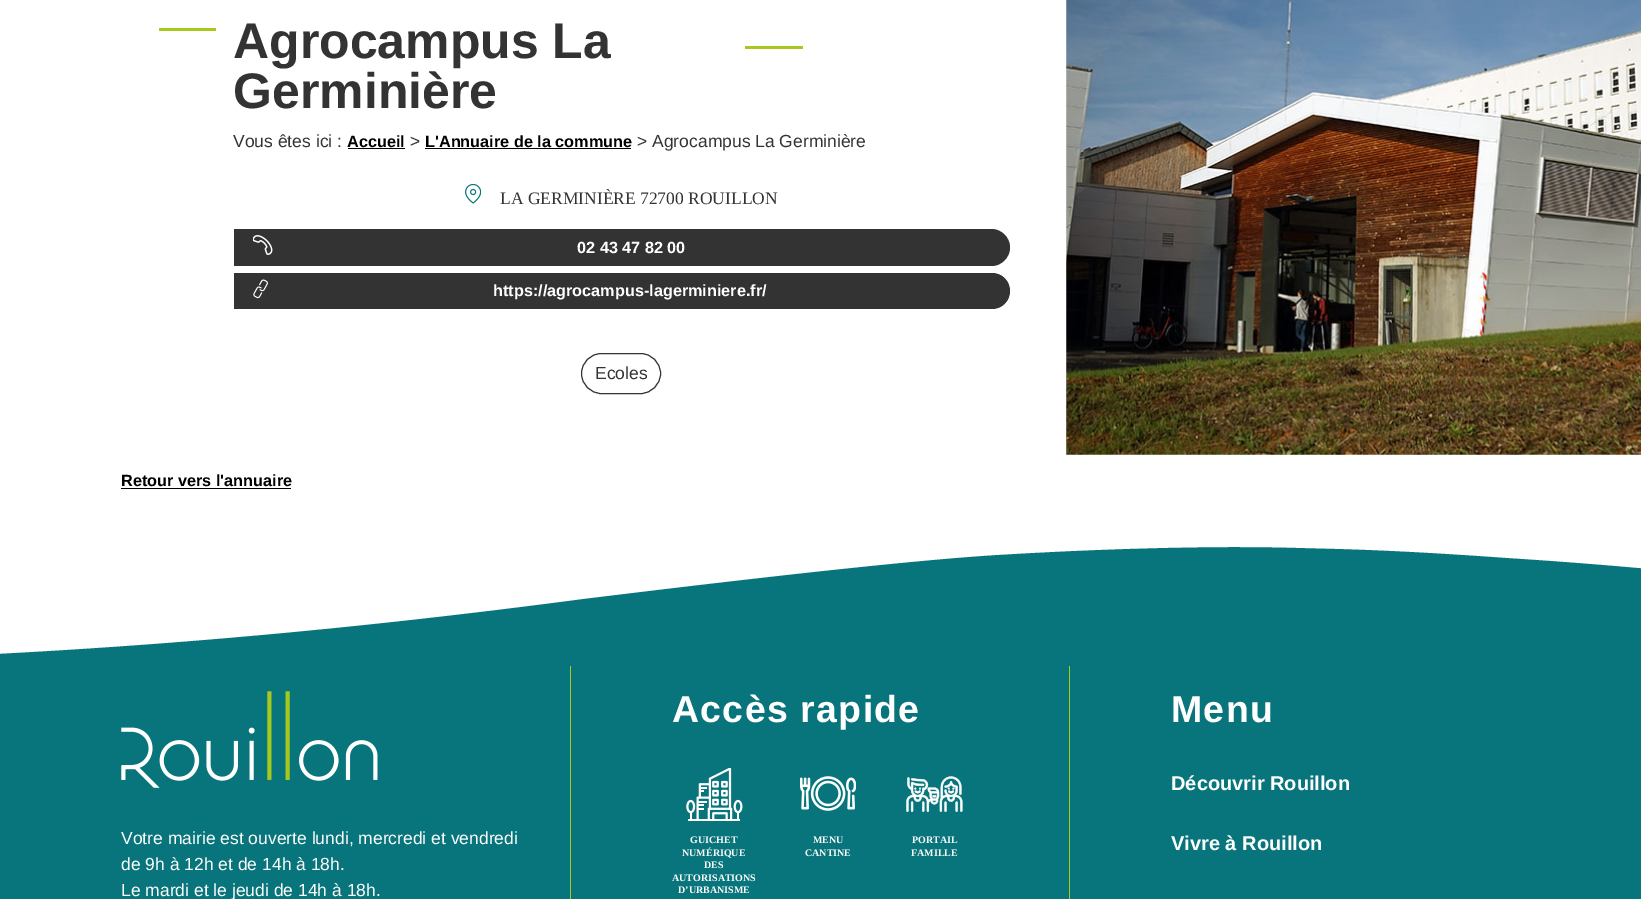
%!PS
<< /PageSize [1641 899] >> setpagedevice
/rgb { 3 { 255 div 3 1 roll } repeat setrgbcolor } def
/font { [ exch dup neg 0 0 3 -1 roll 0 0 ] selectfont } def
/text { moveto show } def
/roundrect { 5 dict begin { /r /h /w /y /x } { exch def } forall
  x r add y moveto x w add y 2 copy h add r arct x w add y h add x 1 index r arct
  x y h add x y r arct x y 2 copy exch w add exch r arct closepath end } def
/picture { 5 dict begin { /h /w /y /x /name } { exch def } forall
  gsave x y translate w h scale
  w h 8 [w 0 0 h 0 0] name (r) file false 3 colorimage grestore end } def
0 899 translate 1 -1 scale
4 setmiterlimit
255 255 255 rgb
0 0 1641 899 rectfill
165 201 28 rgb
159 28 57 3 rectfill
745 46 58 3 rectfill
0 0 0 rgb
348 148 57 1 rectfill
425 148 206 1 rectfill
(img_01.rgb) 465 184 16 20 picture
51 51 51 rgb
234 229 moveto 757.5 0 rlineto 10 0 18.5 8.5 18.5 18.5 rcurveto 0 10 -8.5 18.5 -18.5 18.5 rcurveto -757.5 0 rlineto closepath fill
(img_02.rgb) 253 235 20 20 picture
234 273 moveto 758 0 rlineto 10 0 18 8 18 18 rcurveto 0 10 -8 18 -18 18 rcurveto -758 0 rlineto closepath fill
(img_03.rgb) 253 279 15 20 picture
581.5 353.5 79 40 20 roundrect stroke
(img_04.rgb) 1066 0 575 455 picture
0 0 0 rgb
121 488 170 1 rectfill
7 117 123 rgb
0 547 1641 352 rectfill
255 255 255 rgb
1305 548 moveto -93 -3 -212 1 -310 7 rcurveto -97 6 -291 29 -413 44 rcurveto -311 41 -548 56 -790 63 rcurveto -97 2 -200 4 -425 -4 rcurveto -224 -7 -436 -32 -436 -32 rcurveto 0 -86 rlineto 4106 0 rlineto 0 38 rlineto 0 0 -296 41 -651 38 rcurveto -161 -1 -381 -8 -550 -28 rcurveto -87 -10 -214 -23 -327 -30 rcurveto -111 -8 -162 -9 -204 -10 rcurveto closepath fill
165 201 28 rgb
1069 666 1 233 rectfill
570 666 1 233 rectfill
(img_05.rgb) 686 768 57 53 picture
(img_06.rgb) 800 776 56 35 picture
(img_07.rgb) 906 776 57 36 picture
(img_08.rgb) 121 691 257 97 picture
/LiberationSans-Bold 50 font
51 51 51 rgb
(Agrocampus La) 233 58 text
(Germinière) 233 108 text
/LiberationSans-Regular 17.5 font
(Vous êtes ici :) 233 147 text
/LiberationSans-Bold 16.25 font
0 0 0 rgb
(Accueil) 347 147 text
/LiberationSans-Regular 17.5 font
51 51 51 rgb
(>) 410 147 text
/LiberationSans-Bold 16.25 font
0 0 0 rgb
(L'Annuaire de la commune) 425 147 text
/LiberationSans-Regular 17.5 font
51 51 51 rgb
(> Agrocampus La Germinière) 637 147 text
/LiberationSerif-Regular 17.5 font
(LA GERMINIÈRE 72700 ROUILLON) 500 204 text
/LiberationSans-Bold 16.25 font
255 255 255 rgb
(02 43 47 82 00) 577 253 text
(https://agrocampus-lagerminiere.fr/) 493 296 text
/LiberationSans-Regular 17.5 font
51 51 51 rgb
(Ecoles) 595 379 text
/LiberationSans-Bold 16.25 font
0 0 0 rgb
(Retour vers l'annuaire) 121 486 text
/LiberationSans-Bold 37.5 font
255 255 255 rgb
672 722 moveto 1.25 0 (Accès rapide) ashow
/LiberationSerif-Bold 10 font
(GUICHET) 690 843 text
(NUMÉRIQUE) 682 856 text
(DES) 704 868 text
(AUTORISATIONS) 672 881 text
(D’URBANISME) 678 893 text
(MENU) 813 843 text
(CANTINE) 805 856 text
(PORTAIL) 912 843 text
(FAMILLE) 911 856 text
/LiberationSans-Bold 37.5 font
1171 722 moveto 1.25 0 (Menu) ashow
/LiberationSans-Bold 20 font
(Découvrir Rouillon) 1171 790 text
(Vivre à Rouillon) 1171 850 text
/LiberationSans-Regular 17.5 font
(Votre mairie est ouverte lundi, mercredi et vendredi) 121 844 text
(de 9h à 12h et de 14h à 18h.) 121 870 text
(Le mardi et le jeudi de 14h à 18h.) 121 896 text
showpage
